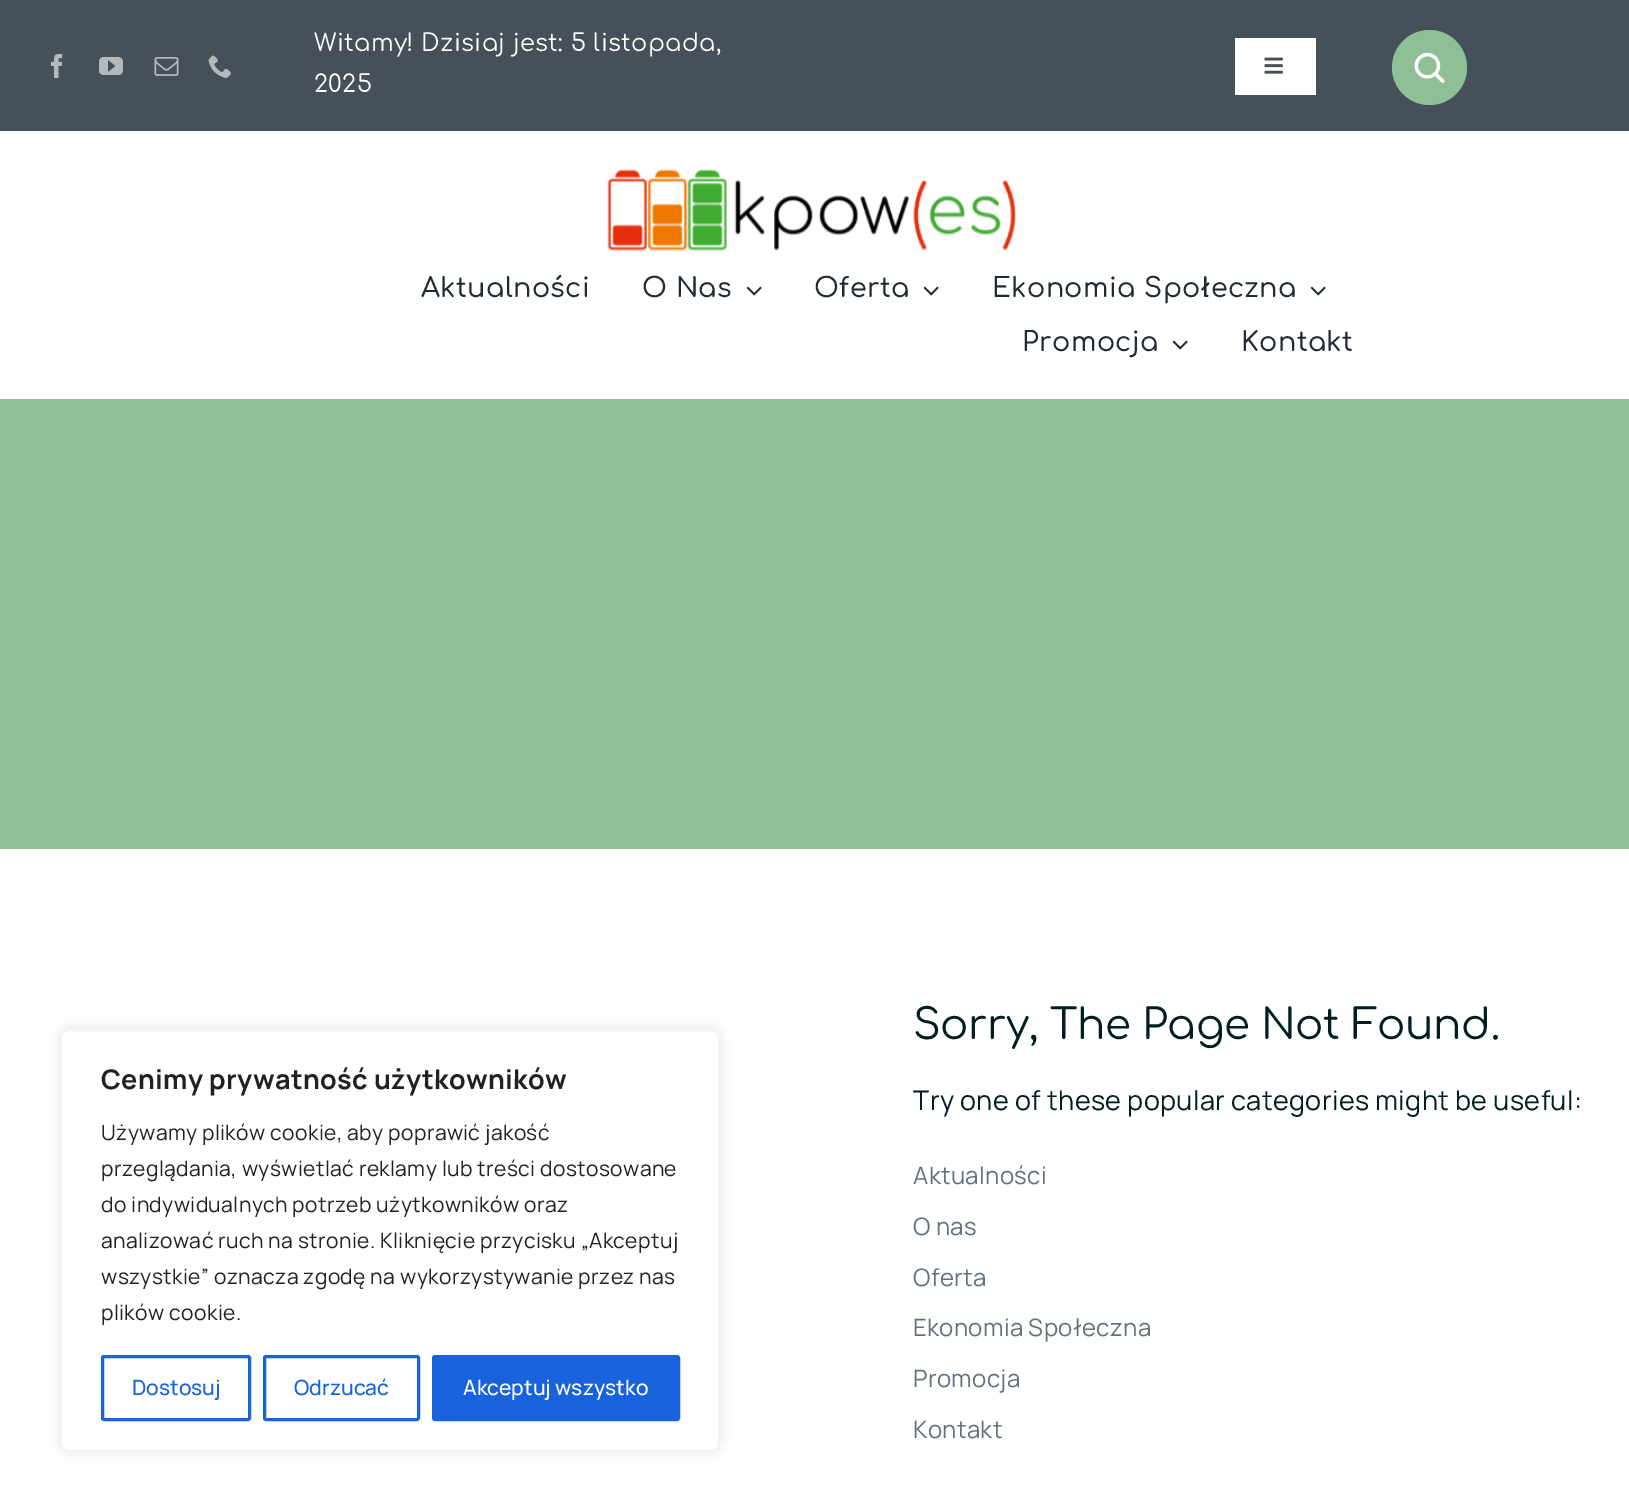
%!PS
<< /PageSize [1629 1511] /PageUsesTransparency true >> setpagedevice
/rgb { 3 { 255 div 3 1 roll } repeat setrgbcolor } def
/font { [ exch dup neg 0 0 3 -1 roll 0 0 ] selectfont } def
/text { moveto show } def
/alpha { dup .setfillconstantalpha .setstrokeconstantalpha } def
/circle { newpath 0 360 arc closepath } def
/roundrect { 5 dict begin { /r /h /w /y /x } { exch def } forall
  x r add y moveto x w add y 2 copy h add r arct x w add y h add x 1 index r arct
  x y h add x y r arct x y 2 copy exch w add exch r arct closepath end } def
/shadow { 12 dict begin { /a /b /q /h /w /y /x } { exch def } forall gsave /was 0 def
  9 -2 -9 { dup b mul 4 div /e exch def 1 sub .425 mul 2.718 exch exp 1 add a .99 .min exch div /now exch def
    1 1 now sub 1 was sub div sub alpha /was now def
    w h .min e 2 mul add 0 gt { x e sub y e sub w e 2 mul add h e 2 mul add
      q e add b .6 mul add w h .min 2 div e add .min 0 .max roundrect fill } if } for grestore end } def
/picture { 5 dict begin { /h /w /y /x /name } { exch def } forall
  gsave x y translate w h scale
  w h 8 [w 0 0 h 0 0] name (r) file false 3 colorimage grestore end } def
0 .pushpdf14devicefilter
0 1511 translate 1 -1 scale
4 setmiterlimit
255 255 255 rgb
0 0 1629 1511 rectfill
69 80 90 rgb
0 0 1629 131 rectfill
(img_01.rgb) 51 54 12 24 picture
(img_02.rgb) 99 57 24 18 picture
(img_03.rgb) 154 57 25 19 picture
(img_04.rgb) 208 55 23 23 picture
255 255 255 rgb
1235 38 81 57 rectfill
(img_05.rgb) 1264 57 19 17 picture
143 191 149 rgb
1429.5 67.5 37.5 circle fill
(img_06.rgb) 1414 52 31 31 picture
(img_07.rgb) 607 169 409 83 picture
(img_08.rgb) 746 286 16 10 picture
(img_08.rgb) 923 286 16 10 picture
(img_08.rgb) 1310 286 16 10 picture
(img_08.rgb) 1172 340 16 10 picture
0 399 1629 450 rectfill
172 171 171 rgb
60 1028 660 423 9 7.5 0.3 shadow
255 255 255 rgb
61 1030 658 421 8 roundrect gsave fill grestore
244 244 244 rgb
2 setlinewidth
stroke
24 99 220 rgb
3 setlinewidth
102.5 1356.5 147 63 1.5 roundrect stroke
264.5 1356.5 154 63 1.5 roundrect stroke
433.5 1356.5 245 63 1.5 roundrect gsave fill grestore
stroke
/Comfortaa-Regular 24 font
255 255 255 rgb
314 51 moveto 0.35 0 (Witamy! Dzisiaj jest: 5 listopada,) ashow
314 92 moveto 0.35 0 (2025) ashow
/Comfortaa-Medium 27 font
33 41 52 rgb
421 297 moveto 0.4 0 (Aktualności) ashow
642 297 moveto 0.4 0 (O Nas) ashow
814 297 moveto 0.4 0 (Oferta) ashow
992 297 moveto 0.4 0 (Ekonomia Społeczna) ashow
1022 351 moveto 0.4 0 (Promocja) ashow
1241 351 moveto 0.4 0 (Kontakt) ashow
/Comfortaa-Regular 42 font
0 29 33 rgb
913 1039 moveto -0.4 0 (Sorry, The Page Not Found.) ashow
/Manrope-Regular 27 font
913 1110 moveto 0.4 0 (Try one of these popular categories might be useful:) ashow
/Manrope-Regular 24 font
99 113 127 rgb
913 1184 moveto 0.35 0 (Aktualności) ashow
913 1235 moveto 0.35 0 (O nas) ashow
913 1286 moveto 0.35 0 (Oferta) ashow
913 1336 moveto 0.35 0 (Ekonomia Społeczna) ashow
913 1387 moveto 0.35 0 (Promocja) ashow
913 1438 moveto 0.35 0 (Kontakt) ashow
/Manrope-Bold 27 font
33 33 33 rgb
101 1089 moveto 0.4 0 (Cenimy prywatność użytkowników) ashow
/Manrope-Regular 21 font
101 1140 moveto 0.4 0 (Używamy plików cookie, aby poprawić jakość) ashow
101 1176 moveto 0.4 0 (przeglądania, wyświetlać reklamy lub treści dostosowane) ashow
101 1212 moveto 0.4 0 (do indywidualnych potrzeb użytkowników oraz) ashow
101 1248 moveto 0.4 0 (analizować ruch na stronie. Kliknięcie przycisku „Akceptuj) ashow
101 1284 moveto 0.4 0 (wszystkie” oznacza zgodę na wykorzystywanie przez nas) ashow
101 1320 moveto 0.4 0 (plików cookie.) ashow
/Manrope-Medium 21 font
24 99 220 rgb
(Dostosuj) 132 1395 text
(Odrzucać) 294 1395 text
255 255 255 rgb
(Akceptuj wszystko) 463 1395 text
.poppdf14devicefilter showpage
